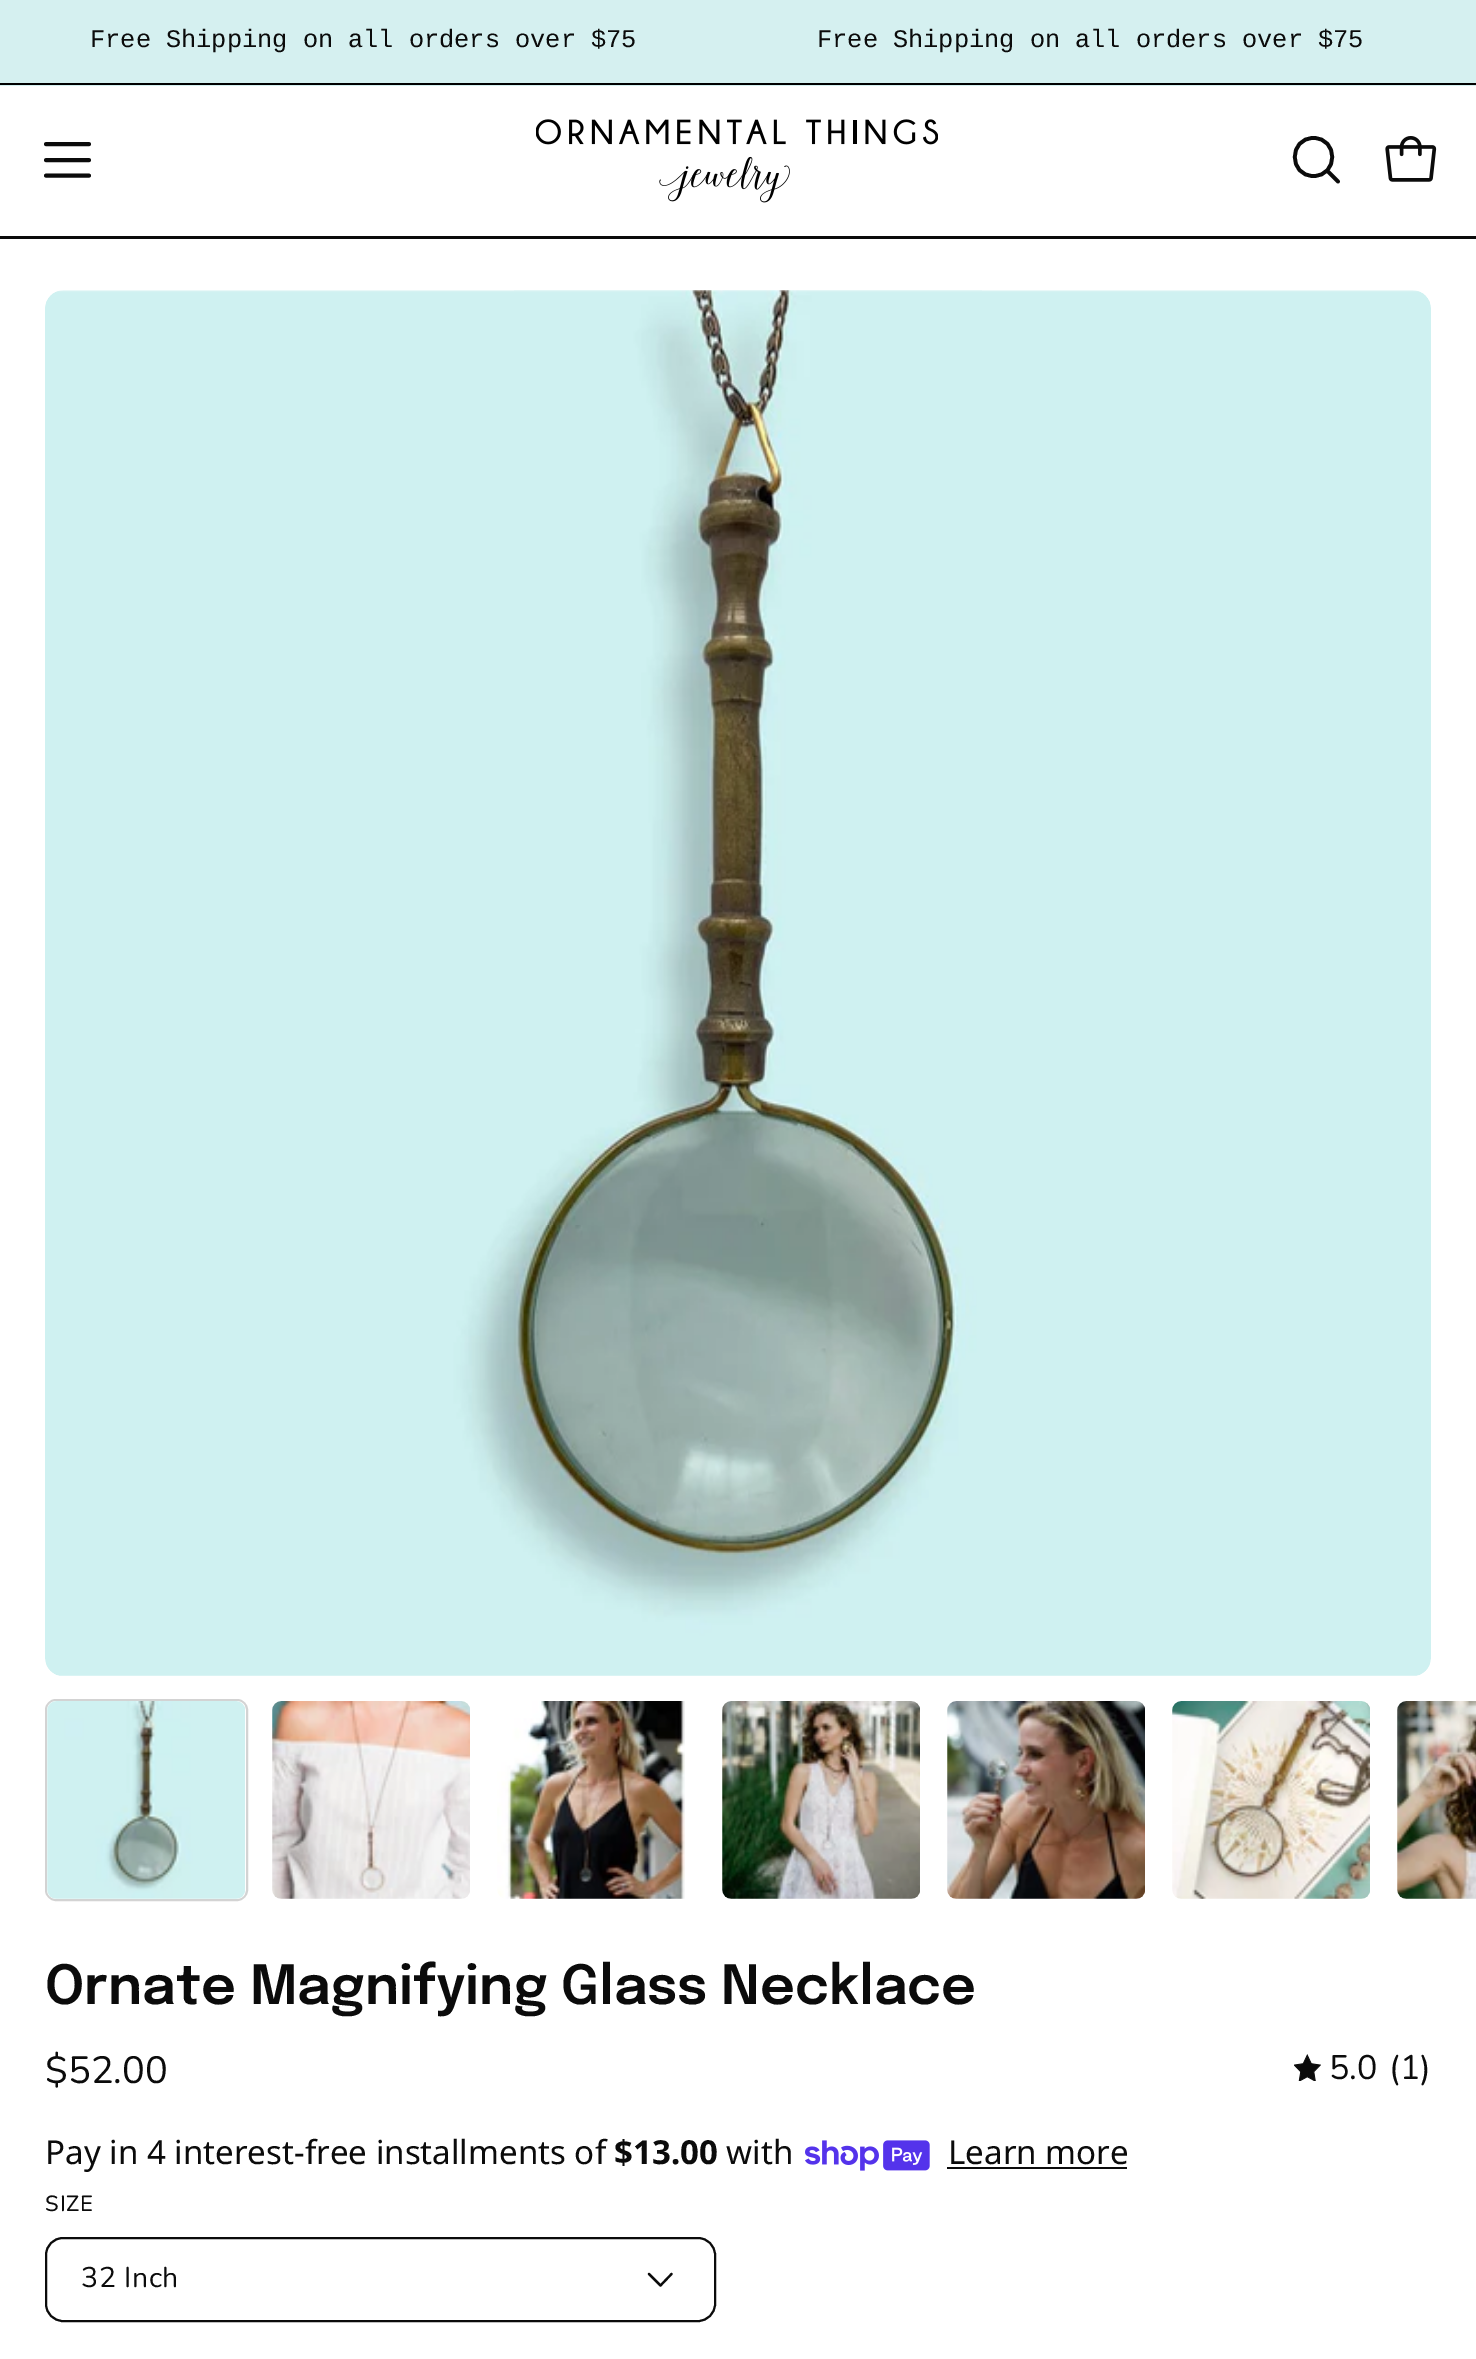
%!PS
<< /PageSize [1476 2359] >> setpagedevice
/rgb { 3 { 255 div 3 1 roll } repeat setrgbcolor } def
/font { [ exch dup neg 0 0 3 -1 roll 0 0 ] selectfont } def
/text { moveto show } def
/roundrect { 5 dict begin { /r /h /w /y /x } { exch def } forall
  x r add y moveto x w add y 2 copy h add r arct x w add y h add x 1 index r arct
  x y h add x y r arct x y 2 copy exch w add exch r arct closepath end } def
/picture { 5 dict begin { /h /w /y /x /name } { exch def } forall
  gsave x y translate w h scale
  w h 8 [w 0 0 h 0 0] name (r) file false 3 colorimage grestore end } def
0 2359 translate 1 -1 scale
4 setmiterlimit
255 255 255 rgb
0 0 1476 2359 rectfill
213 240 240 rgb
0 0 1476 86 rectfill
0 0 0 rgb
0 83 1476 2 rectfill
11 11 11 rgb
3.9 setlinewidth
1 setlinecap
1 setlinejoin
46 160 moveto 43 0 rlineto 46 144 moveto 43 0 rlineto 46 175.5 moveto 43 0 rlineto stroke
(img_01.rgb) 536 119 402 84 picture
3.7 setlinewidth
1313.5 176 moveto 25 0 25 -38 0 -38 rcurveto -25 0 -25 38 0 38 rcurveto closepath 1327 170.5 moveto 11 11 rlineto stroke
(img_02.rgb) 1385 136 52 46 picture
0 236 1476 3 rectfill
(img_03.rgb) 45 290 1386 1386 picture
211 211 211 rgb
2 setlinewidth
0 setlinecap
0 setlinejoin
46 1700 201 200 10 roundrect stroke
(img_04.rgb) 47 1701 198 198 picture
(img_05.rgb) 272 1701 198 198 picture
(img_06.rgb) 497 1701 188 198 picture
(img_07.rgb) 722 1701 198 198 picture
(img_08.rgb) 947 1701 198 198 picture
(img_09.rgb) 1172 1701 198 198 picture
(img_10.rgb) 1397 1701 79 198 picture
(img_11.rgb) 1294 2054 27 27 picture
(img_12.rgb) 805 2140 125 31 picture
11 11 11 rgb
947 2167 180 2 rectfill
46 2238 669 83 17 roundrect stroke
2.2 setlinewidth
1 setlinecap
1 setlinejoin
671.5 2274 moveto -11 11.5 rlineto -11.5 -11.5 rlineto stroke
/LiberationMono-Regular 25.3 font
(Free Shipping on all orders over $75) 90 47 text
(Free Shipping on all orders over $75) 817 47 text
/Epilogue-SemiBold 54 font
(Ornate Magnifying Glass Necklace) 45 2004 text
/Nunito-Regular 38 font
($52.00) 45 2083 text
/Nunito-Regular 34 font
(5.0) 1329 2079 text
(\(1\)) 1389 2079 text
/NotoSans-Regular 33.1 font
(Pay in 4 interest-free installments of) 45 2164 text
/NotoSans-Bold 33.1 font
($13.00) 614 2164 text
/NotoSans-Regular 33.1 font
(with) 726 2164 text
(Learn more) 948 2164 text
/Nunito-Medium 22 font
45 2211 moveto 1 0 (SIZE) ashow
/Nunito-Regular 28.5 font
81 2287 moveto 0.5 0 (32 Inch) ashow
showpage
